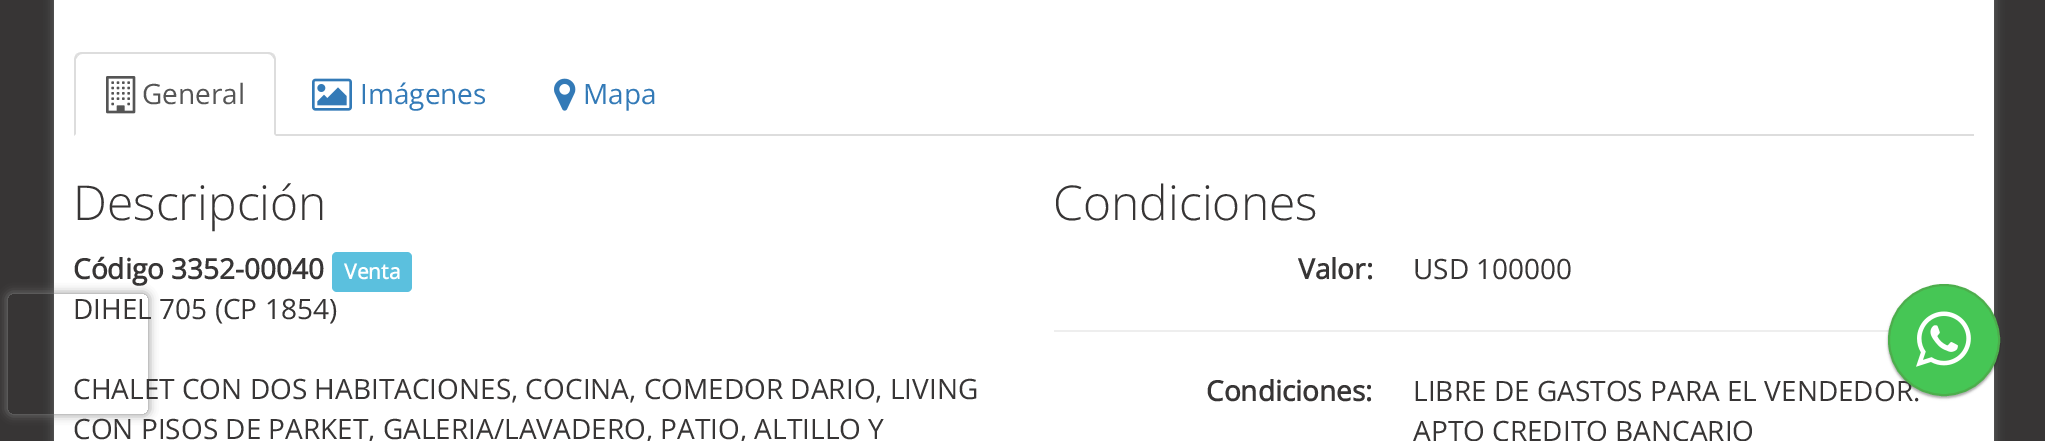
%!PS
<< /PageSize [2045 441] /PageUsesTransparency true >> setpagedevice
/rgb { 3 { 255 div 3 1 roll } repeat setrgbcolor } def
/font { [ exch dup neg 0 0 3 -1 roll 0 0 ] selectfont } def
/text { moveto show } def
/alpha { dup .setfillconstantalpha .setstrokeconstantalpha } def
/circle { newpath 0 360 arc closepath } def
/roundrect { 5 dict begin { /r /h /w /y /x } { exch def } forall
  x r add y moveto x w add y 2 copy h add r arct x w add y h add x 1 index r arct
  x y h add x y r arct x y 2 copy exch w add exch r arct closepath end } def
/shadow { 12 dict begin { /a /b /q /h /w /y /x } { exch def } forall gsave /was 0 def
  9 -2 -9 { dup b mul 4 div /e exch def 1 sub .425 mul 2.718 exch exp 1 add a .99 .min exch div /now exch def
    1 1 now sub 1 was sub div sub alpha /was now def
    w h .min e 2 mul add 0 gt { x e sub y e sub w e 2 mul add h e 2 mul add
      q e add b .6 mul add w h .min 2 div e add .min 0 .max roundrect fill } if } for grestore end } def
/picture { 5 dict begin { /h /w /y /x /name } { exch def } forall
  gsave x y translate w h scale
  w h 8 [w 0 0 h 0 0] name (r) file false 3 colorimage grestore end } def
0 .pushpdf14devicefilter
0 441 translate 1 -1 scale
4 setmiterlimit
55 53 53 rgb
0 0 2045 441 rectfill
102 102 102 rgb
54 -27 1940 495 12 5 1 shadow
255 255 255 rgb
54 0 1940 441 rectfill
221 221 221 rgb
276 134 1698 2 rectfill
82 52 moveto -2 0 -4 1 -6 2 rcurveto 2 2 rlineto 1 -1 2 -2 4 -2 rcurveto 186 0 rlineto 2 0 3 1 4 2 rcurveto 2 -2 rlineto -2 -1 -4 -2 -6 -2 rcurveto closepath fill
276 136 moveto 0 -76 rlineto 0 -2 -1 -4 -2 -6 rcurveto -2 2 rlineto 2 3 rlineto 0 75 rlineto closepath fill
74 136 moveto 2 -2 rlineto 0 -75 rlineto 2 -3 rlineto -2 -2 rlineto -1 2 -2 4 -2 6 rcurveto closepath fill
(img_01.rgb) 106 76 30 38 picture
(img_02.rgb) 312 78 40 33 picture
(img_03.rgb) 554 78 22 33 picture
91 192 222 rgb
332 252 80 40 5 roundrect fill
238 238 238 rgb
1054 330 835 2 rectfill
gsave
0 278 moveto 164 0 rlineto 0 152 rlineto -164 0 rlineto closepath 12 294 moveto 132 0 rlineto 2 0 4 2 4 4 rcurveto 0 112 rlineto 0 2 -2 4 -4 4 rcurveto -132 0 rlineto -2 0 -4 -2 -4 -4 rcurveto 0 -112 rlineto 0 -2 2 -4 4 -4 rcurveto closepath eoclip newpath
128 128 128 rgb
8 294 140 120 4 5 1 shadow
grestore
0 0 0 rgb
1888 286 112 112 56 1 0.24 shadow
1888 286 112 112 56 1.5 0.12 shadow
/OpenSans-Regular 28 font
85 85 85 rgb
(General) 142 104 text
51 122 183 rgb
(Imágenes) 360 104 text
(Mapa) 583 104 text
/OpenSans-Light 48 font
55 53 53 rgb
(Descripción) 73 220 text
/OpenSans-Bold 28 font
(Código 3352-00040) 73 279 text
/OpenSans-Bold 21 font
255 255 255 rgb
(Venta) 344 279 text
/OpenSans-Regular 28 font
55 53 53 rgb
(DIHEL 705 \(CP 1854\)) 73 319 text
(CHALET CON DOS HABITACIONES, COCINA, COMEDOR DARIO, LIVING) 73 399 text
(CON PISOS DE PARKET, GALERIA/LAVADERO, PATIO, ALTILLO Y) 73 439 text
/OpenSans-Light 48 font
(Condiciones) 1053 220 text
/OpenSans-Bold 28 font
(Valor:) 1298 279 text
/OpenSans-Regular 28 font
(USD 100000) 1413 279 text
/OpenSans-Bold 28 font
(Condiciones:) 1206 401 text
/OpenSans-Regular 28 font
(LIBRE DE GASTOS PARA EL VENDEDOR.) 1413 401 text
(APTO CREDITO BANCARIO) 1413 441 text
70 198 85 rgb
1944 340 55 circle gsave fill grestore
76 174 76 rgb
2 setlinewidth
stroke
(img_04.rgb) 1916 311 55 56 picture
.poppdf14devicefilter showpage
